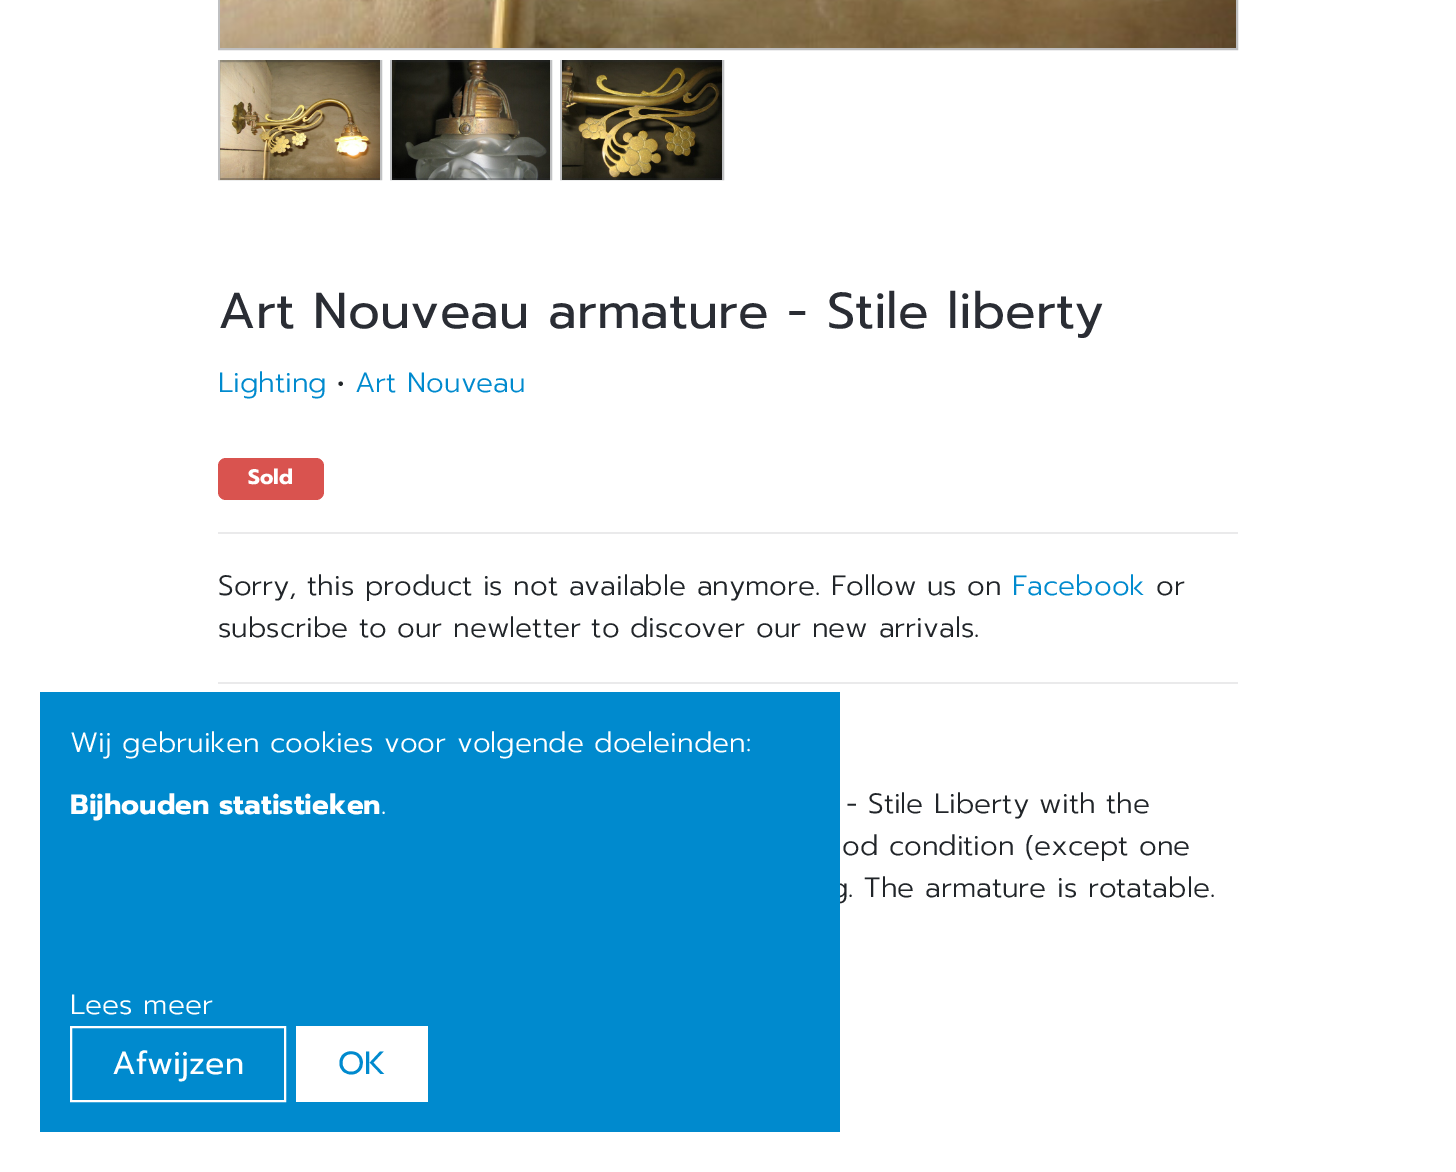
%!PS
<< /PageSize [1456 1172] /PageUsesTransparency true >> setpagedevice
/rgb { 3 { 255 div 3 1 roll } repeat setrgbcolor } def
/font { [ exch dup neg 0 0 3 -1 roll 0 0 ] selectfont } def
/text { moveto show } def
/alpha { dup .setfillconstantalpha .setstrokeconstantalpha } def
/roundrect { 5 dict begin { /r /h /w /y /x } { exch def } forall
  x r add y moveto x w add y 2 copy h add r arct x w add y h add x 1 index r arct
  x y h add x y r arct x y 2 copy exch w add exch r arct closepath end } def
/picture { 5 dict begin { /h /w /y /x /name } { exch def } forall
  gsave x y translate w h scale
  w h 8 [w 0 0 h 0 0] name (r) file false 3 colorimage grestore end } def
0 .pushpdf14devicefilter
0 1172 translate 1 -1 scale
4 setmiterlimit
255 255 255 rgb
0 0 1456 1172 rectfill
191 192 194 rgb
2 setlinewidth
219 -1 1018 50 rectstroke
(img_01.rgb) 220 0 1016 48 picture
(img_02.rgb) 220 60 160 120 picture
0.3 alpha
42 45 52 rgb
219 61 162 118 rectstroke
1 alpha
(img_03.rgb) 392 60 158 120 picture
0.3 alpha
391 61 160 118 rectstroke
1 alpha
(img_04.rgb) 562 60 160 120 picture
0.3 alpha
561 61 162 118 rectstroke
1 alpha
217 83 79 rgb
218 458 106 42 8 roundrect fill
234 234 235 rgb
218 532 1020 2 rectfill
218 682 1020 2 rectfill
/Prompt-Regular 50.4 font
42 45 52 rgb
(Art Nouveau armature - Stile liberty) 218 328 text
/Prompt-Light 28 font
0 138 206 rgb
(Lighting) 218 392 text
33 37 41 rgb
(•) 337 392 text
0 138 206 rgb
(Art Nouveau) 355 392 text
/Prompt-Bold 21 font
255 255 255 rgb
(Sold) 248 484 text
/Prompt-Light 28 font
33 37 41 rgb
(Sorry, this product is not available anymore. Follow us on) 218 595 text
0 138 206 rgb
(Facebook) 1012 595 text
33 37 41 rgb
(or) 1156 595 text
(subscribe to our newletter to discover our new arrivals.) 218 637 text
(- Stile Liberty with the) 846 813 text
(od condition \(except one) 842 855 text
(g. The armature is rotatable.) 830 897 text
0 138 206 rgb
40 692 800 440 rectfill
255 255 255 rgb
(Wij gebruiken cookies voor volgende doeleinden:) 70 752 text
/Prompt-Bold 28 font
(Bijhouden statistieken) 70 814 text
/Prompt-Light 28 font
(.) 381 814 text
(Lees meer) 70 1014 text
71 1027 214 74 rectstroke
/Prompt-Regular 32 font
(Afwijzen) 112 1074 text
296 1026 132 76 rectfill
0 138 206 rgb
(OK) 338 1074 text
.poppdf14devicefilter showpage
